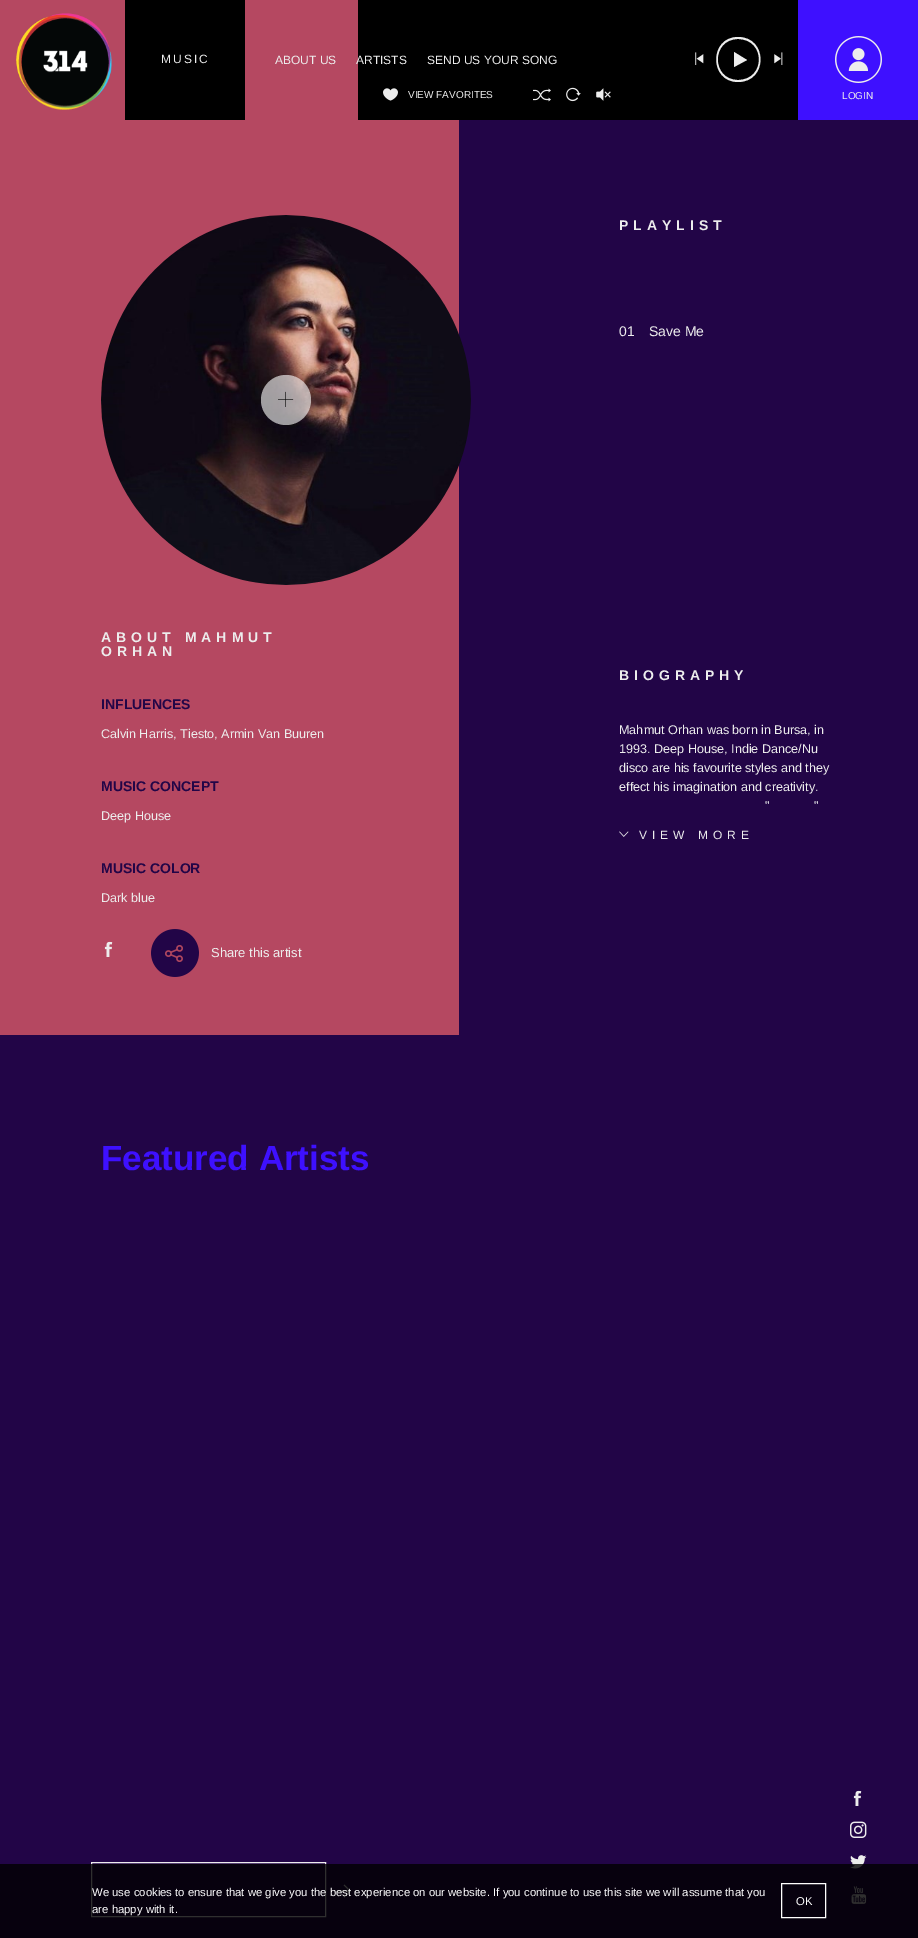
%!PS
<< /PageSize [918 1938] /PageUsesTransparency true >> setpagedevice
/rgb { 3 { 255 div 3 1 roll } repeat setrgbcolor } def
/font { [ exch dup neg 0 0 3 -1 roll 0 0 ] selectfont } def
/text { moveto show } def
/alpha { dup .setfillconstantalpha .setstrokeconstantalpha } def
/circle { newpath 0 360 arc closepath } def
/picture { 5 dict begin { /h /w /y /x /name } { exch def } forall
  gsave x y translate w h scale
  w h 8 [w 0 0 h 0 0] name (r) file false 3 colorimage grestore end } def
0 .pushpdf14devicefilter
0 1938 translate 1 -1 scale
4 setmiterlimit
34 5 71 rgb
0 0 918 1938 rectfill
181 72 97 rgb
0 0 459 1035 rectfill
(img_01.rgb) 16 13 96 97 picture
0 0 0 rgb
125 0 120 120 rectfill
358 0 440 120 rectfill
(img_02.rgb) 695 52 9 13 picture
237 237 237 rgb
734 67 moveto 0 -15 rlineto 13 8 rlineto closepath 738 37 moveto 30 0 30 45 0 45 rcurveto -29 0 -29 -45 0 -45 rcurveto closepath 738 80 moveto 28 0 28 -41 0 -41 rcurveto -27 0 -27 41 0 41 rcurveto closepath fill
(img_03.rgb) 774 52 9 13 picture
(img_04.rgb) 383 88 15 13 picture
(img_05.rgb) 533 88 18 14 picture
(img_06.rgb) 566 87 15 15 picture
(img_07.rgb) 596 88 15 13 picture
62 16 255 rgb
798 0 120 120 rectfill
(img_08.rgb) 835 36 47 47 picture
(img_09.rgb) 101 215 370 370 picture
0.6 alpha
255 255 255 rgb
286 400 25 circle fill
1 alpha
(img_10.rgb) 278 391 16 16 picture
(img_11.rgb) 104 941 9 16 picture
(img_12.rgb) 151 929 48 48 picture
(img_13.rgb) 619 831 10 6 picture
237 237 237 rgb
91.5 1862.5 234 54 rectstroke
(img_14.rgb) 337 1884 14 14 picture
(img_15.rgb) 853 1790 9 16 picture
(img_16.rgb) 850 1821 17 17 picture
(img_17.rgb) 850 1855 17 14 picture
(img_18.rgb) 851 1886 16 18 picture
0.8 alpha
0 0 0 rgb
0 1864 918 74 rectfill
1 alpha
255 255 255 rgb
781.5 1883.5 44 34 rectstroke
/LiberationSans-Regular 12 font
237 237 237 rgb
161 63 moveto 2 0 (MUSIC) ashow
(ABOUT US) 275 64 text
(ARTISTS) 356 64 text
(SEND US YOUR SONG) 427 64 text
/LiberationSans-Regular 10 font
(VIEW FAVORITES) 408 98 text
(LOGIN) 842 99 text
/LiberationSans-Bold 14 font
101 642 moveto 5 0 (ABOUT MAHMUT) ashow
101 656 moveto 5 0 (ORHAN) ashow
34 5 71 rgb
(INFLUENCES) 101 709 text
/LiberationSans-Regular 12.6 font
237 237 237 rgb
(Calvin Harris, Tiesto, Armin Van Buuren) 101 738 text
/LiberationSans-Bold 14 font
34 5 71 rgb
(MUSIC CONCEPT) 101 791 text
/LiberationSans-Regular 12.6 font
237 237 237 rgb
(Deep House) 101 820 text
/LiberationSans-Bold 14 font
34 5 71 rgb
(MUSIC COLOR) 101 873 text
/LiberationSans-Regular 12.6 font
237 237 237 rgb
(Dark blue) 101 902 text
/LiberationSans-Regular 13 font
(Share this artist) 211 957 text
/LiberationSans-Bold 14 font
619 230 moveto 5 0 (PLAYLIST) ashow
/LiberationSans-Regular 14 font
(01) 619 336 text
(Save Me) 649 336 text
/LiberationSans-Bold 14 font
619 680 moveto 5 0 (BIOGRAPHY) ashow
/LiberationSans-Regular 12.6 font
(Mahmut Orhan was born in Bursa, in) 619 734 text
(1993. Deep House, Indie Dance/Nu) 619 753 text
(disco are his favourite styles and they) 619 772 text
(effect his imagination and creativity.) 619 791 text
(") 765 810 text
(") 814 810 text
/LiberationSans-Regular 12 font
639 839 moveto 5 0 (VIEW MORE) ashow
/LiberationSans-Bold 35 font
62 16 255 rgb
(Featured Artists) 101 1170 text
/LiberationSans-Regular 11.35 font
255 255 255 rgb
(We use cookies to ensure that we give you the best experience on our website. If you continue to use this site we will assume that you) 92 1896 text
(are happy with it.) 92 1913 text
(OK) 796 1905 text
.poppdf14devicefilter showpage
